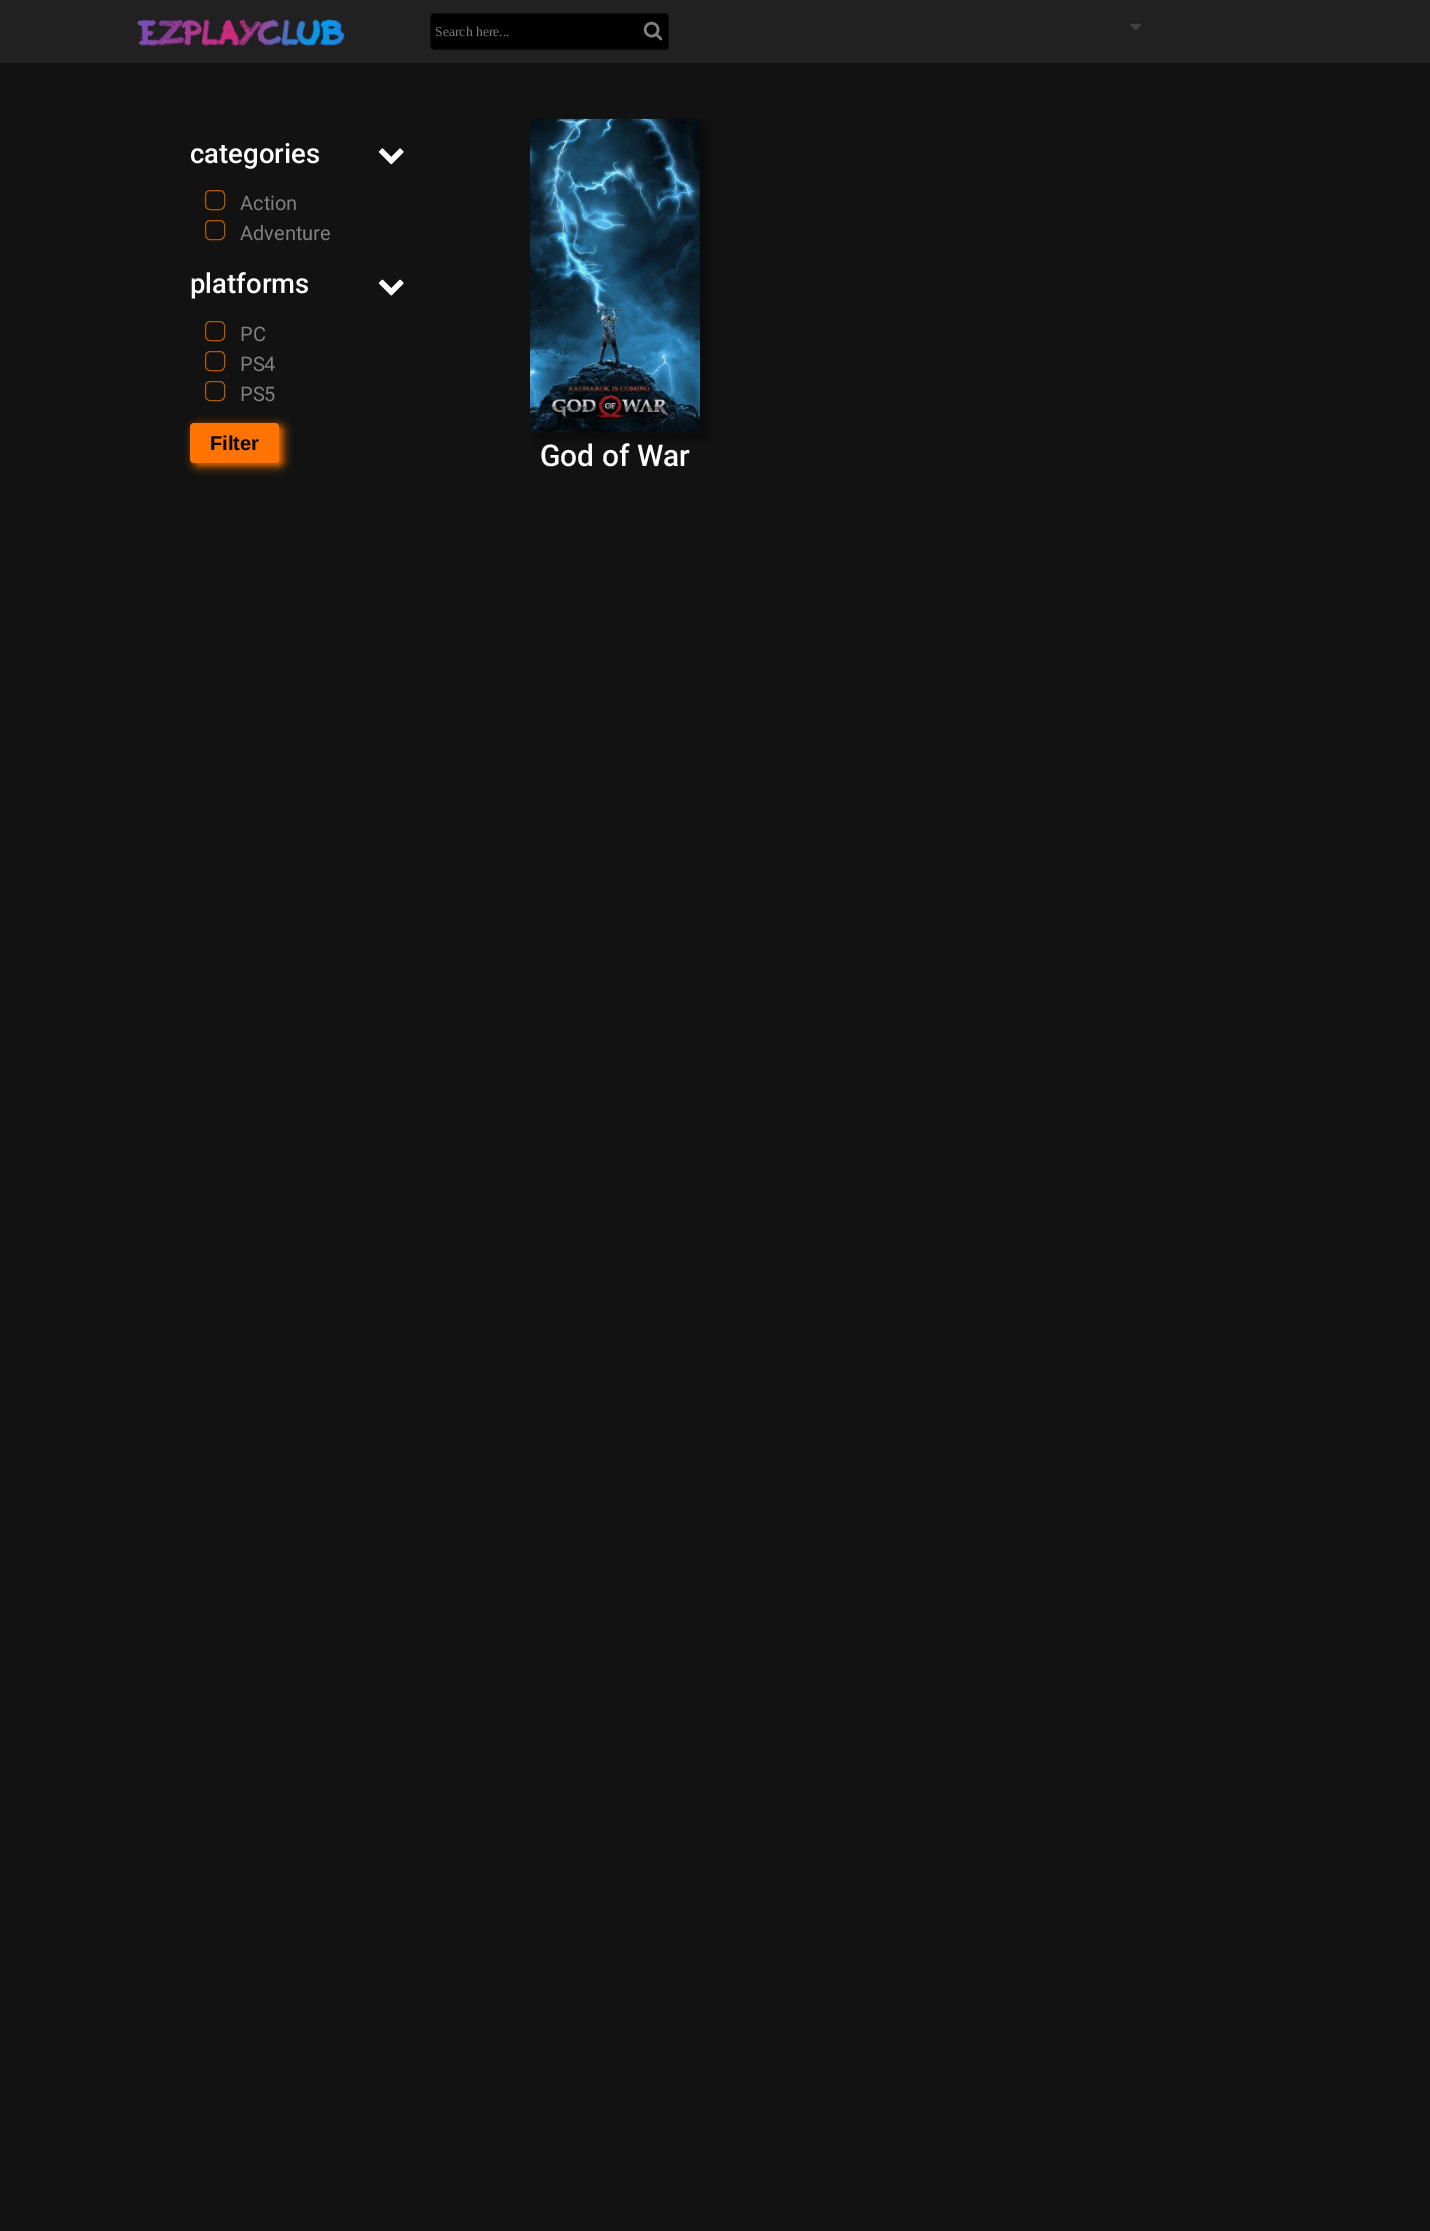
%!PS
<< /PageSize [1430 2231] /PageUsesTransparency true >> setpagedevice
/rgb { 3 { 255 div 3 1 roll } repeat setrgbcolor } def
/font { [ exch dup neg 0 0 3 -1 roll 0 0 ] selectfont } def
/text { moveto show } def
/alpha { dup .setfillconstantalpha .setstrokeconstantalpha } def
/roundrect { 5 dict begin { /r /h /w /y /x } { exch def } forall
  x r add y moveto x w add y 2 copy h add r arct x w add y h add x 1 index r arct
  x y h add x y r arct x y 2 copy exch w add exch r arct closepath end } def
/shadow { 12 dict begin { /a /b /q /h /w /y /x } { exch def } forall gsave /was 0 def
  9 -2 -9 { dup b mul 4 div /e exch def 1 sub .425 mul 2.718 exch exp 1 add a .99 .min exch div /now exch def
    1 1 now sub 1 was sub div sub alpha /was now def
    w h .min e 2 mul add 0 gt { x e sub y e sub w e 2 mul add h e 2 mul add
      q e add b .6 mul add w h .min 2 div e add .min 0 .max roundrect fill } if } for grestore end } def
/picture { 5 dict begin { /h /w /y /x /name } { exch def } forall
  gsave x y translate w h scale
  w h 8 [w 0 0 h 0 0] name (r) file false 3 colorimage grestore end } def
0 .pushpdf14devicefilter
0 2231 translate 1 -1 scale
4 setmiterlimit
18 18 18 rgb
0 0 1430 2231 rectfill
33 33 33 rgb
0 0 1430 63 rectfill
(img_01.rgb) 136 18 209 29 picture
0 0 0 rgb
430.5 13.5 238 36 3.5 roundrect gsave fill grestore
15 15 15 rgb
stroke
(img_02.rgb) 643 21 20 20 picture
(img_03.rgb) 1130 23 12 7 picture
(img_04.rgb) 378 148 26 17 picture
178 88 4 rgb
205.5 190.5 19 19 4.5 roundrect stroke
205.5 220.5 19 19 4.5 roundrect stroke
(img_05.rgb) 378 279 26 17 picture
205.5 321.5 19 19 4.5 roundrect stroke
205.5 351.5 19 19 4.5 roundrect stroke
205.5 381.5 19 19 4.5 roundrect stroke
255 115 0 rgb
194 426 89 40 4 4.5 1 shadow
190 423 89 40 4 roundrect fill
0 0 0 rgb
536 125 170 314 0 6 0.5 shadow
(img_06.rgb) 530 118 170 315 picture
/LiberationSerif-Regular 13.75 font
117 117 117 rgb
(Search here...) 435 36 text
/Roboto-Medium 27.5 font
255 255 255 rgb
(categories) 190 163 text
/Roboto-Regular 20 font
128 128 128 rgb
(Action) 240 210 text
(Adventure) 240 240 text
/Roboto-Medium 27.5 font
255 255 255 rgb
(platforms) 190 293 text
/Roboto-Regular 20 font
128 128 128 rgb
(PC) 240 341 text
(PS4) 240 371 text
(PS5) 240 401 text
/LiberationSans-Bold 20 font
0 0 0 rgb
(Filter) 210 450 text
/Roboto-Medium 30 font
255 255 255 rgb
(God of War) 540 466 text
.poppdf14devicefilter showpage
